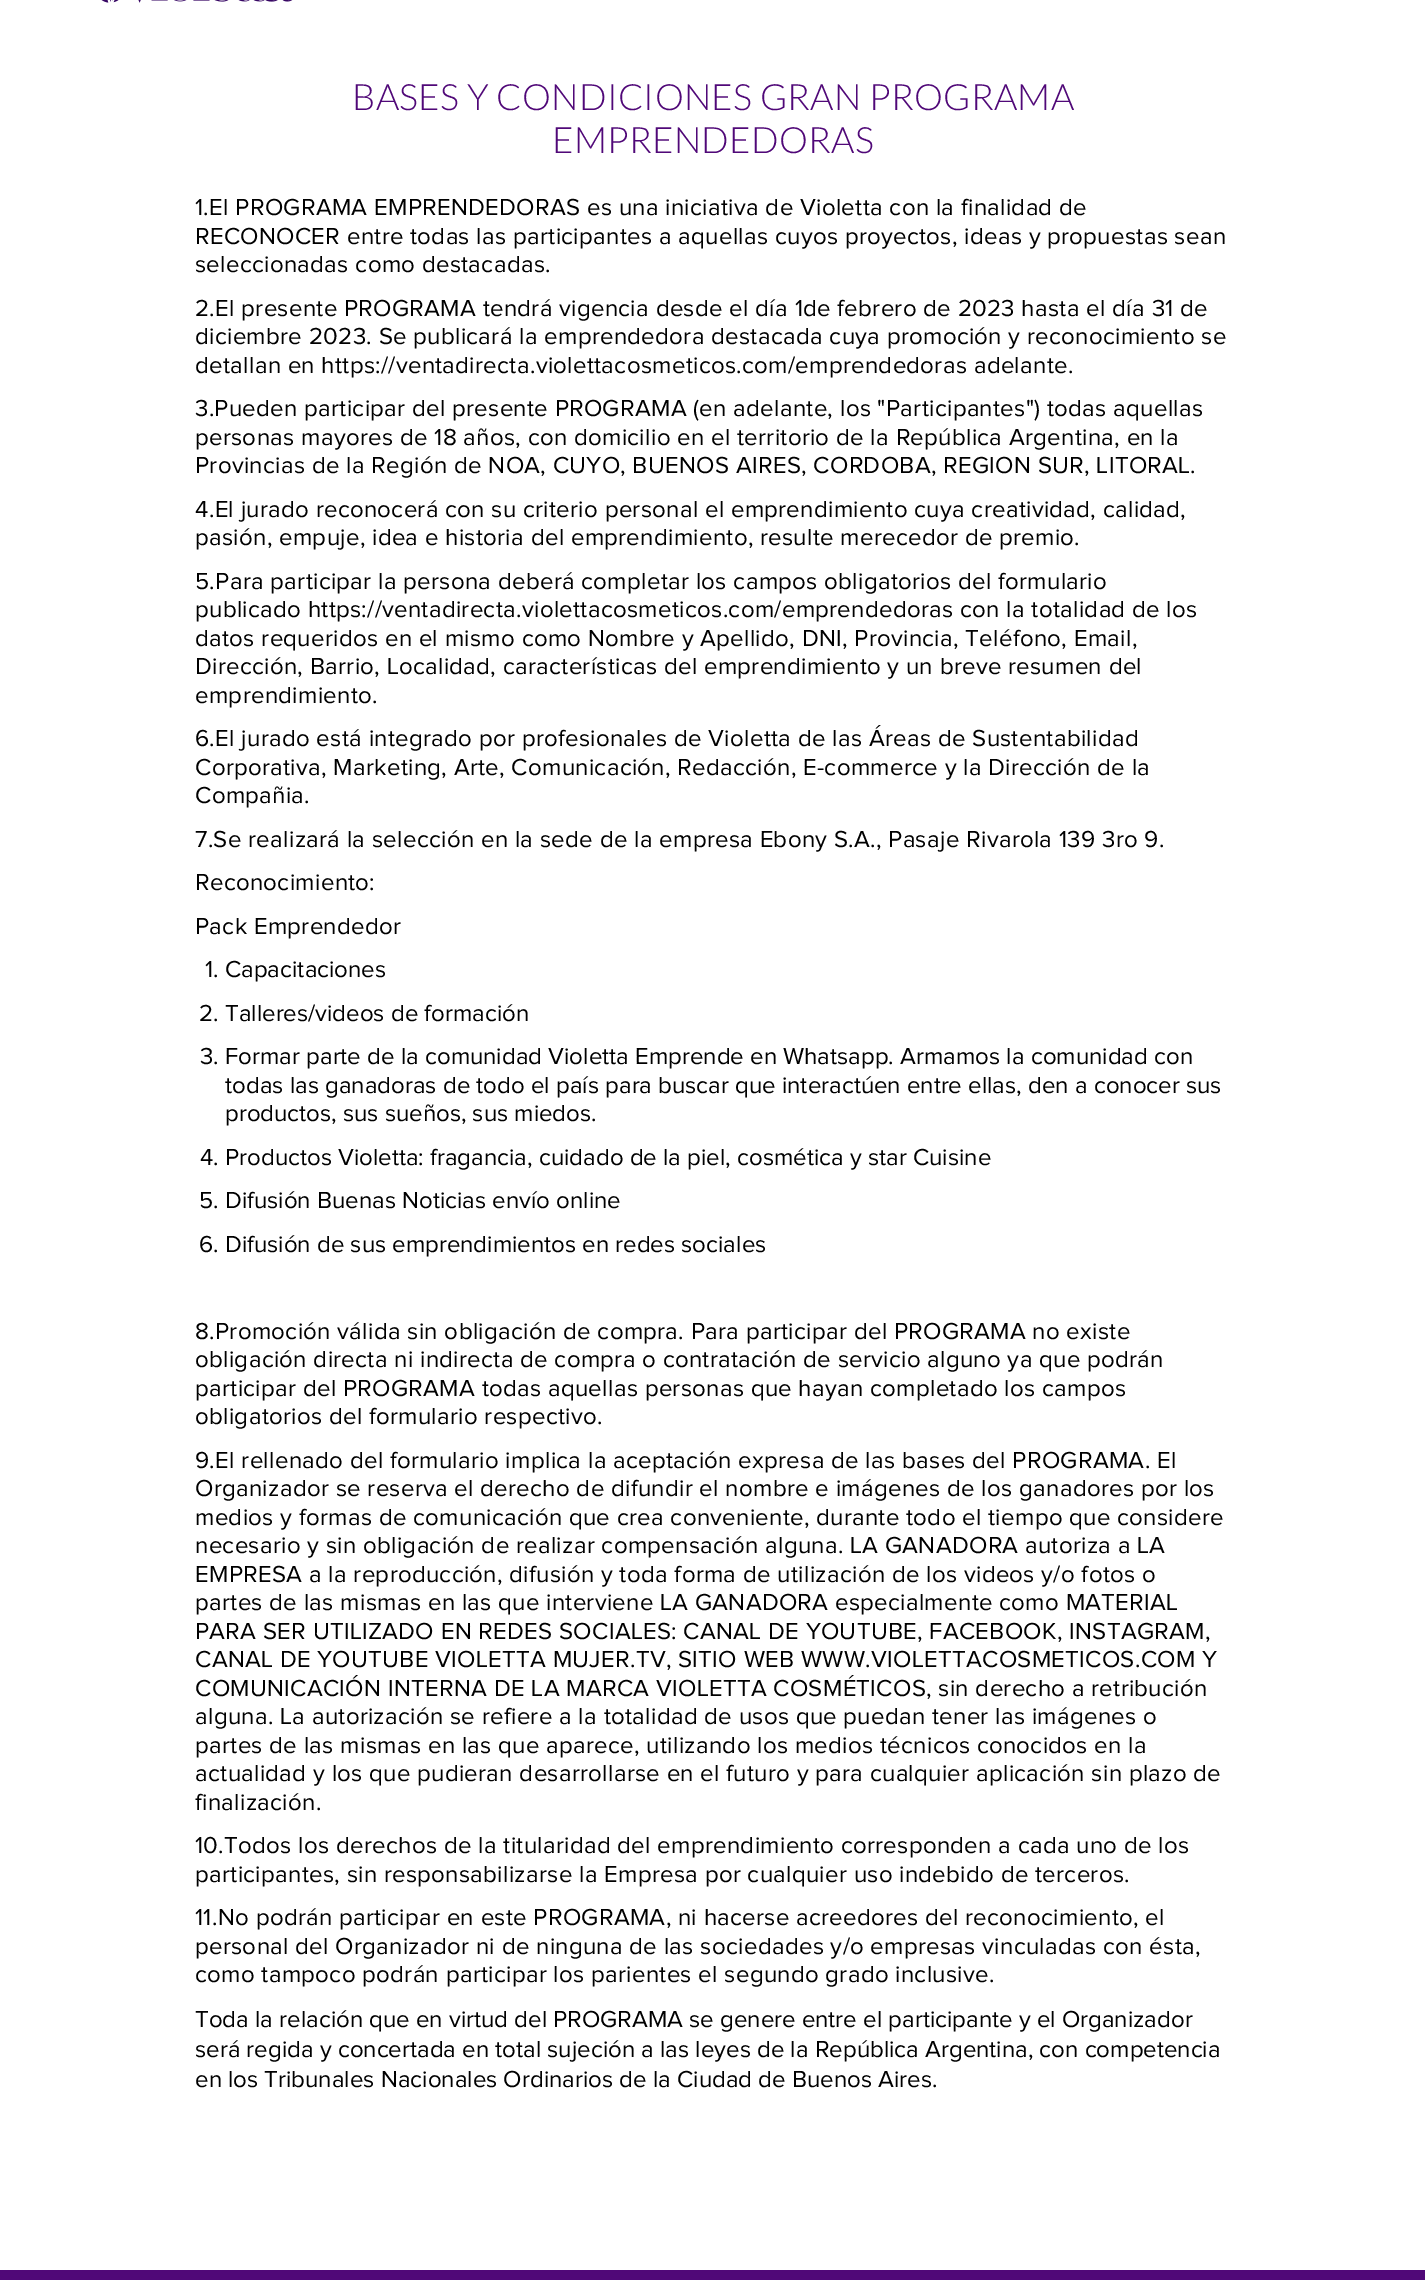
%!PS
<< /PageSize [1425 2280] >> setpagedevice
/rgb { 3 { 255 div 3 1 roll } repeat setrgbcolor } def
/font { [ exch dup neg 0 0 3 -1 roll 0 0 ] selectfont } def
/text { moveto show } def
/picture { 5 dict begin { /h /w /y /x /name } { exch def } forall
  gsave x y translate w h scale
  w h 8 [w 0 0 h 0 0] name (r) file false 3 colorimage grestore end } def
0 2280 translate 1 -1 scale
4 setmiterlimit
255 255 255 rgb
0 0 1425 2280 rectfill
(img_01.rgb) 101 0 192 3 picture
80 8 120 rgb
0 2270 1425 10 rectfill
/Lato-Light 36.25 font
352 110 moveto 0.3 0 (BASES Y CONDICIONES GRAN PROGRAMA) ashow
552 153 moveto 0.3 0 (EMPRENDEDORAS) ashow
/ProximaNova-Regular 24 font
0 0 0 rgb
195 215 moveto 0.3 0 (1.El PROGRAMA EMPRENDEDORAS es una iniciativa de Violetta con la finalidad de) ashow
195 244 moveto 0.3 0 (RECONOCER entre todas las participantes a aquellas cuyos proyectos, ideas y propuestas sean) ashow
195 272 moveto 0.3 0 (seleccionadas como destacadas.) ashow
195 316 moveto 0.3 0 (2.El presente PROGRAMA tendrá vigencia desde el día 1de febrero de 2023 hasta el día 31 de) ashow
195 344 moveto 0.3 0 (diciembre 2023. Se publicará la emprendedora destacada cuya promoción y reconocimiento se) ashow
195 373 moveto 0.3 0 (detallan en https://ventadirecta.violettacosmeticos.com/emprendedoras adelante.) ashow
195 416 moveto 0.3 0 (3.Pueden participar del presente PROGRAMA \(en adelante, los "Participantes"\) todas aquellas) ashow
195 445 moveto 0.3 0 (personas mayores de 18 años, con domicilio en el territorio de la República Argentina, en la) ashow
195 473 moveto 0.3 0 (Provincias de la Región de NOA, CUYO, BUENOS AIRES, CORDOBA, REGION SUR, LITORAL.) ashow
195 517 moveto 0.3 0 (4.El jurado reconocerá con su criterio personal el emprendimiento cuya creatividad, calidad,) ashow
195 545 moveto 0.3 0 (pasión, empuje, idea e historia del emprendimiento, resulte merecedor de premio.) ashow
195 589 moveto 0.3 0 (5.Para participar la persona deberá completar los campos obligatorios del formulario) ashow
195 617 moveto 0.3 0 (publicado https://ventadirecta.violettacosmeticos.com/emprendedoras con la totalidad de los) ashow
195 646 moveto 0.3 0 (datos requeridos en el mismo como Nombre y Apellido, DNI, Provincia, Teléfono, Email,) ashow
195 674 moveto 0.3 0 (Dirección, Barrio, Localidad, características del emprendimiento y un breve resumen del) ashow
195 703 moveto 0.3 0 (emprendimiento.) ashow
195 746 moveto 0.3 0 (6.El jurado está integrado por profesionales de Violetta de las Áreas de Sustentabilidad) ashow
195 775 moveto 0.3 0 (Corporativa, Marketing, Arte, Comunicación, Redacción, E-commerce y la Dirección de la) ashow
195 803 moveto 0.3 0 (Compañia.) ashow
195 847 moveto 0.3 0 (7.Se realizará la selección en la sede de la empresa Ebony S.A., Pasaje Rivarola 139 3ro 9.) ashow
195 890 moveto 0.3 0 (Reconocimiento:) ashow
195 934 moveto 0.3 0 (Pack Emprendedor) ashow
(1. Capacitaciones) 205 977 text
(2. Talleres/videos de formación) 199 1021 text
(3. Formar parte de la comunidad Violetta Emprende en Whatsapp. Armamos la comunidad con) 200 1064 text
(todas las ganadoras de todo el país para buscar que interactúen entre ellas, den a conocer sus) 225 1093 text
(productos, sus sueños, sus miedos.) 225 1121 text
(4. Productos Violetta: fragancia, cuidado de la piel, cosmética y star Cuisine) 200 1165 text
(5. Difusión Buenas Noticias envío online) 199 1208 text
(6. Difusión de sus emprendimientos en redes sociales) 199 1252 text
195 1339 moveto 0.3 0 (8.Promoción válida sin obligación de compra. Para participar del PROGRAMA no existe) ashow
195 1367 moveto 0.3 0 (obligación directa ni indirecta de compra o contratación de servicio alguno ya que podrán) ashow
195 1396 moveto 0.3 0 (participar del PROGRAMA todas aquellas personas que hayan completado los campos) ashow
195 1424 moveto 0.3 0 (obligatorios del formulario respectivo.) ashow
195 1468 moveto 0.3 0 (9.El rellenado del formulario implica la aceptación expresa de las bases del PROGRAMA. El) ashow
195 1496 moveto 0.3 0 (Organizador se reserva el derecho de difundir el nombre e imágenes de los ganadores por los) ashow
195 1525 moveto 0.3 0 (medios y formas de comunicación que crea conveniente, durante todo el tiempo que considere) ashow
195 1553 moveto 0.3 0 (necesario y sin obligación de realizar compensación alguna. LA GANADORA autoriza a LA) ashow
195 1582 moveto 0.3 0 (EMPRESA a la reproducción, difusión y toda forma de utilización de los videos y/o fotos o) ashow
195 1610 moveto 0.3 0 (partes de las mismas en las que interviene LA GANADORA especialmente como MATERIAL) ashow
195 1639 moveto 0.3 0 (PARA SER UTILIZADO EN REDES SOCIALES: CANAL DE YOUTUBE, FACEBOOK, INSTAGRAM,) ashow
195 1667 moveto 0.3 0 (CANAL DE YOUTUBE VIOLETTA MUJER.TV, SITIO WEB WWW.VIOLETTACOSMETICOS.COM Y) ashow
195 1696 moveto 0.3 0 (COMUNICACIÓN INTERNA DE LA MARCA VIOLETTA COSMÉTICOS, sin derecho a retribución) ashow
195 1724 moveto 0.3 0 (alguna. La autorización se refiere a la totalidad de usos que puedan tener las imágenes o) ashow
195 1753 moveto 0.3 0 (partes de las mismas en las que aparece, utilizando los medios técnicos conocidos en la) ashow
195 1781 moveto 0.3 0 (actualidad y los que pudieran desarrollarse en el futuro y para cualquier aplicación sin plazo de) ashow
195 1810 moveto 0.3 0 (finalización.) ashow
195 1853 moveto 0.3 0 (10.Todos los derechos de la titularidad del emprendimiento corresponden a cada uno de los) ashow
195 1882 moveto 0.3 0 (participantes, sin responsabilizarse la Empresa por cualquier uso indebido de terceros.) ashow
195 1925 moveto 0.3 0 (11.No podrán participar en este PROGRAMA, ni hacerse acreedores del reconocimiento, el) ashow
195 1954 moveto 0.3 0 (personal del Organizador ni de ninguna de las sociedades y/o empresas vinculadas con ésta,) ashow
195 1982 moveto 0.3 0 (como tampoco podrán participar los parientes el segundo grado inclusive.) ashow
(Toda la relación que en virtud del PROGRAMA se genere entre el participante y el Organizador) 195 2027 text
(será regida y concertada en total sujeción a las leyes de la República Argentina, con competencia) 195 2057 text
(en los Tribunales Nacionales Ordinarios de la Ciudad de Buenos Aires.) 195 2087 text
showpage
